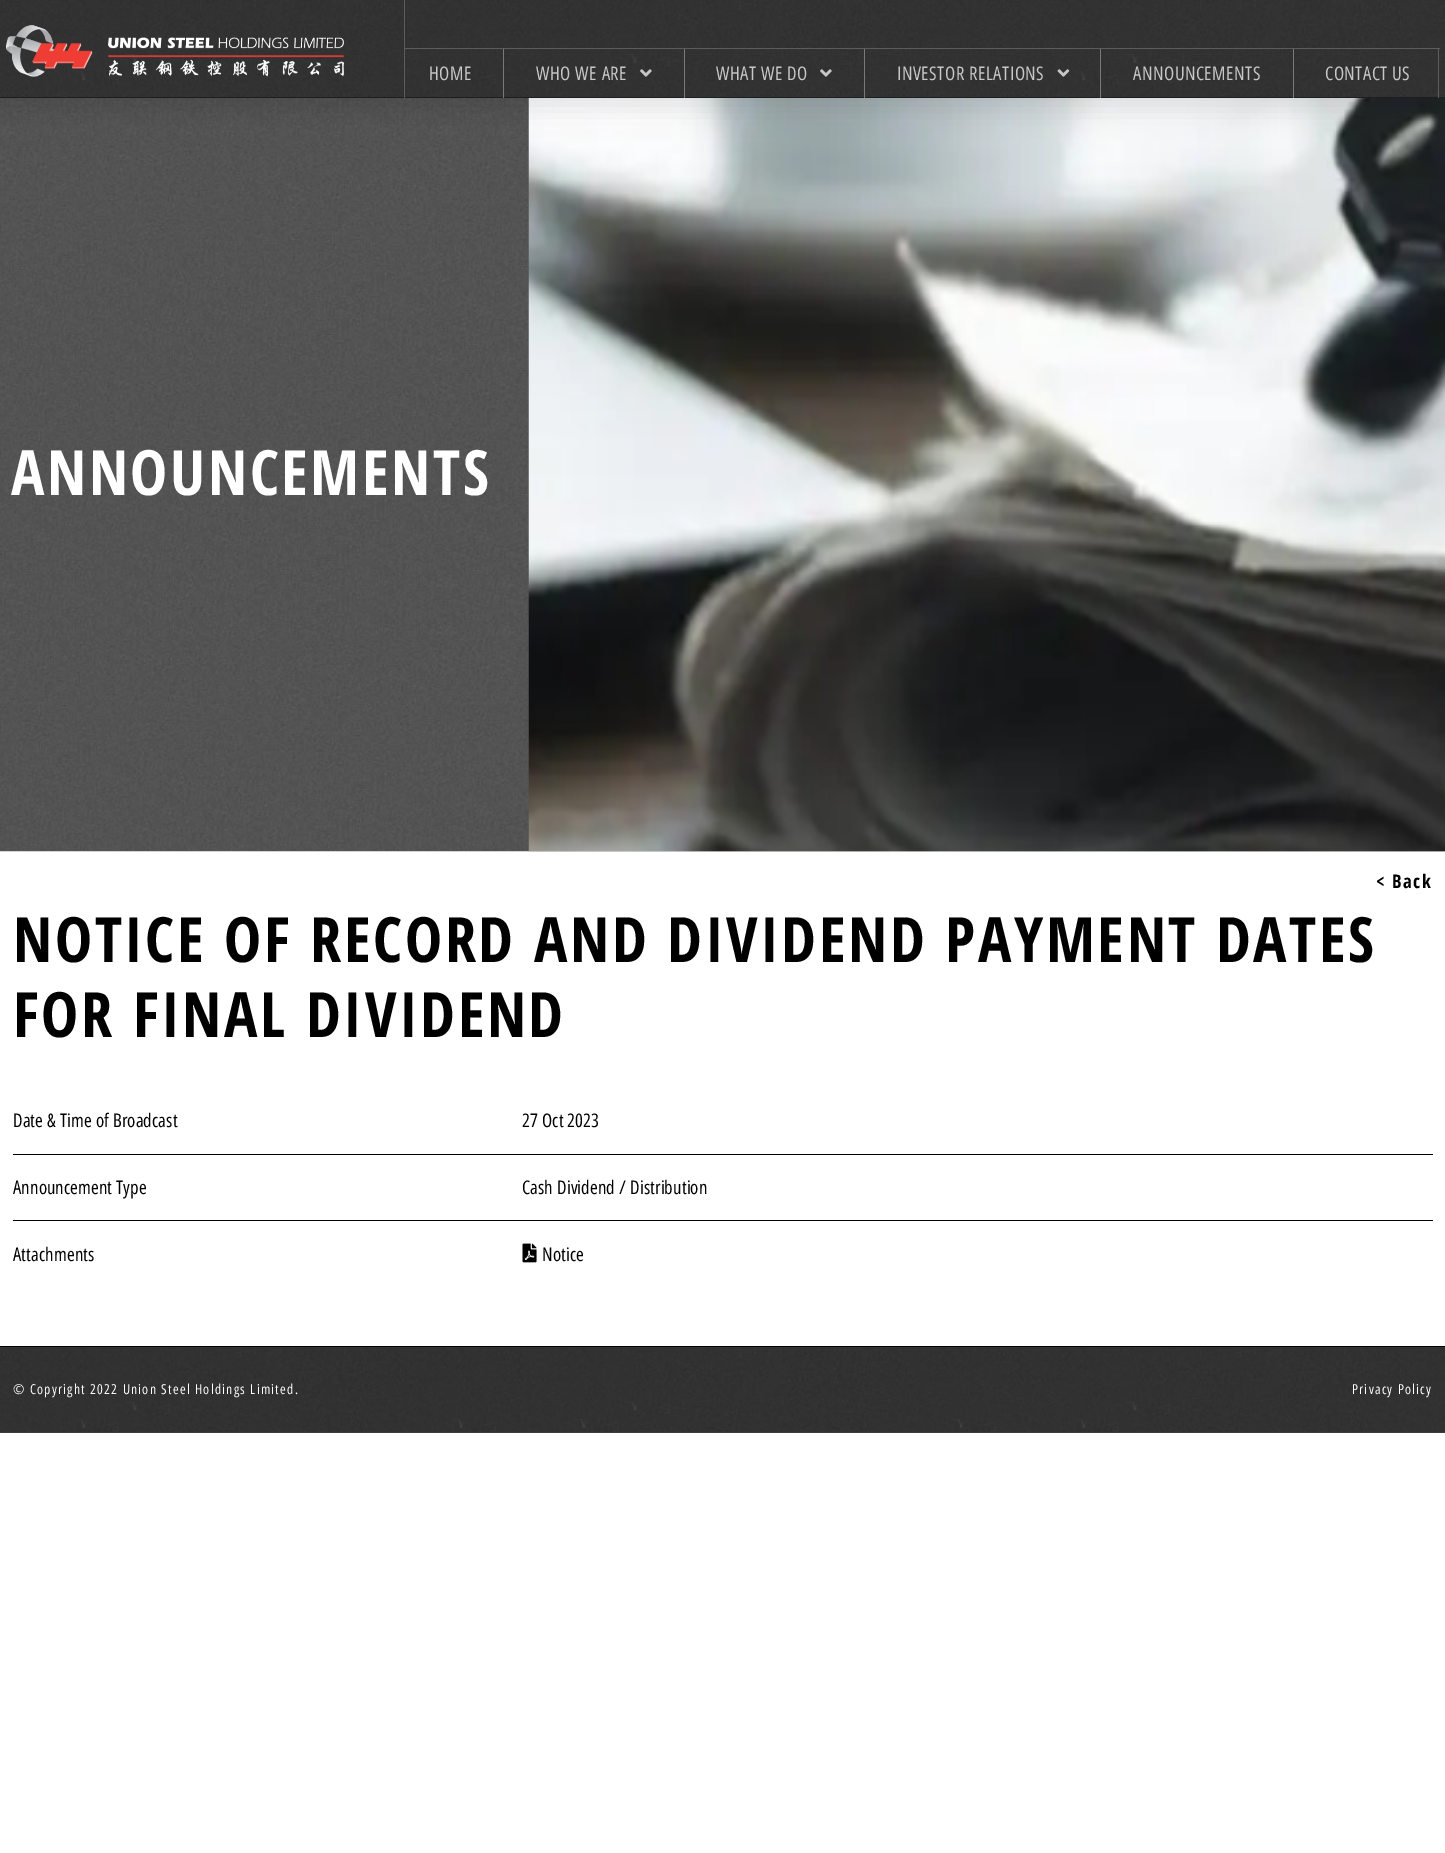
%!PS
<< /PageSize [1445 1853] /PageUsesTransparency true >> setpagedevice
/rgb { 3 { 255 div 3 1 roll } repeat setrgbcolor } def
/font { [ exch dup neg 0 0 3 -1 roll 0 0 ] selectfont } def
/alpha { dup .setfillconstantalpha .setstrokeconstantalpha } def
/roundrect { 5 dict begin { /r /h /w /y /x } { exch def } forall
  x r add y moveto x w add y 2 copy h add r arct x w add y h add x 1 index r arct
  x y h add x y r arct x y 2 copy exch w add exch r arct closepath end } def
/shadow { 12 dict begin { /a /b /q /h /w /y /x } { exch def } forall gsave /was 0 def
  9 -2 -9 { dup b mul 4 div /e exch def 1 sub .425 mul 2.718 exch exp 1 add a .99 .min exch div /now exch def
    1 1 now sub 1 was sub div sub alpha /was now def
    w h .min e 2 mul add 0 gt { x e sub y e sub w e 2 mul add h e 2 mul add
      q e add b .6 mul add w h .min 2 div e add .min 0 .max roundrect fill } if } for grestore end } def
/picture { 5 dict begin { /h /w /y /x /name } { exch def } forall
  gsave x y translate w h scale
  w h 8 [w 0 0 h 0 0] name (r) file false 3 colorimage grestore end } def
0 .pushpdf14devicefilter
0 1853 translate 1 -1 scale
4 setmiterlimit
255 255 255 rgb
0 0 1445 1853 rectfill
(img_06.rgb) 0 98 1445 754 picture
(img_07.rgb) 528 98 917 754 picture
0 0 0 rgb
0 13 1445 97 0 12.5 0.1 shadow
10 10 10 rgb
0 97 1445 1 rectfill
(img_01.rgb) 0 0 1445 98 picture
92 92 92 rgb
404 0 1 98 rectfill
(img_02.rgb) 6 25 338 52 picture
405 48 1035 1 rectfill
1438 49 1 49 rectfill
121 121 121 rgb
503 49 1 49 rectfill
(img_03.rgb) 640 69 12 8 picture
684 49 1 49 rectfill
(img_04.rgb) 820 69 12 8 picture
864 49 1 49 rectfill
(img_05.rgb) 1057 69 13 8 picture
1100 49 1 49 rectfill
1293 49 1 49 rectfill
0 0 0 rgb
13 1154 1420 1 rectfill
13 1220 1420 1 rectfill
(img_08.rgb) 522 1243 15 20 picture
70 70 70 rgb
0 1432 1445 1 rectfill
(img_09.rgb) 0 1347 1445 86 picture
0 0 0 rgb
0 1346 1445 1 rectfill
/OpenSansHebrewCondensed-Regular 18.75 font
200 199 199 rgb
429 80 moveto 0.5 0 (HOME) ashow
536 80 moveto 0.5 0 (WHO WE ARE) ashow
716 80 moveto 0.5 0 (WHAT WE DO) ashow
897 80 moveto 0.5 0 (INVESTOR RELATIONS) ashow
1133 80 moveto 0.5 0 (ANNOUNCEMENTS) ashow
1325 80 moveto 0.5 0 (CONTACT US) ashow
/OpenSansHebrewCondensed-Bold 62.5 font
255 255 255 rgb
11 495 moveto 2.6 0 (ANNOUNCEMENTS) ashow
/OpenSansHebrewCondensed-Bold 18.75 font
0 0 0 rgb
1376 888 moveto 1.5 0 (< Back) ashow
/OpenSansHebrewCondensed-Bold 62.5 font
13 962 moveto 2.6 0 (NOTICE OF RECORD AND DIVIDEND PAYMENT DATES) ashow
13 1037 moveto 2.6 0 (FOR FINAL DIVIDEND) ashow
/OpenSansHebrewCondensed-Regular 18.75 font
13 1127 moveto 0.1 0 (Date & Time of Broadcast) ashow
522 1127 moveto 0.1 0 (27 Oct 2023) ashow
13 1194 moveto 0.1 0 (Announcement Type) ashow
522 1194 moveto 0.1 0 (Cash Dividend / Distribution) ashow
13 1261 moveto 0.1 0 (Attachments) ashow
542 1261 moveto 0.1 0 (Notice) ashow
/OpenSansHebrewCondensed-Regular 13.75 font
255 255 255 rgb
13 1394 moveto 1.25 0 (© Copyright 2022 Union Steel Holdings Limited.) ashow
1352 1394 moveto 1.25 0 (Privacy Policy) ashow
.poppdf14devicefilter showpage
